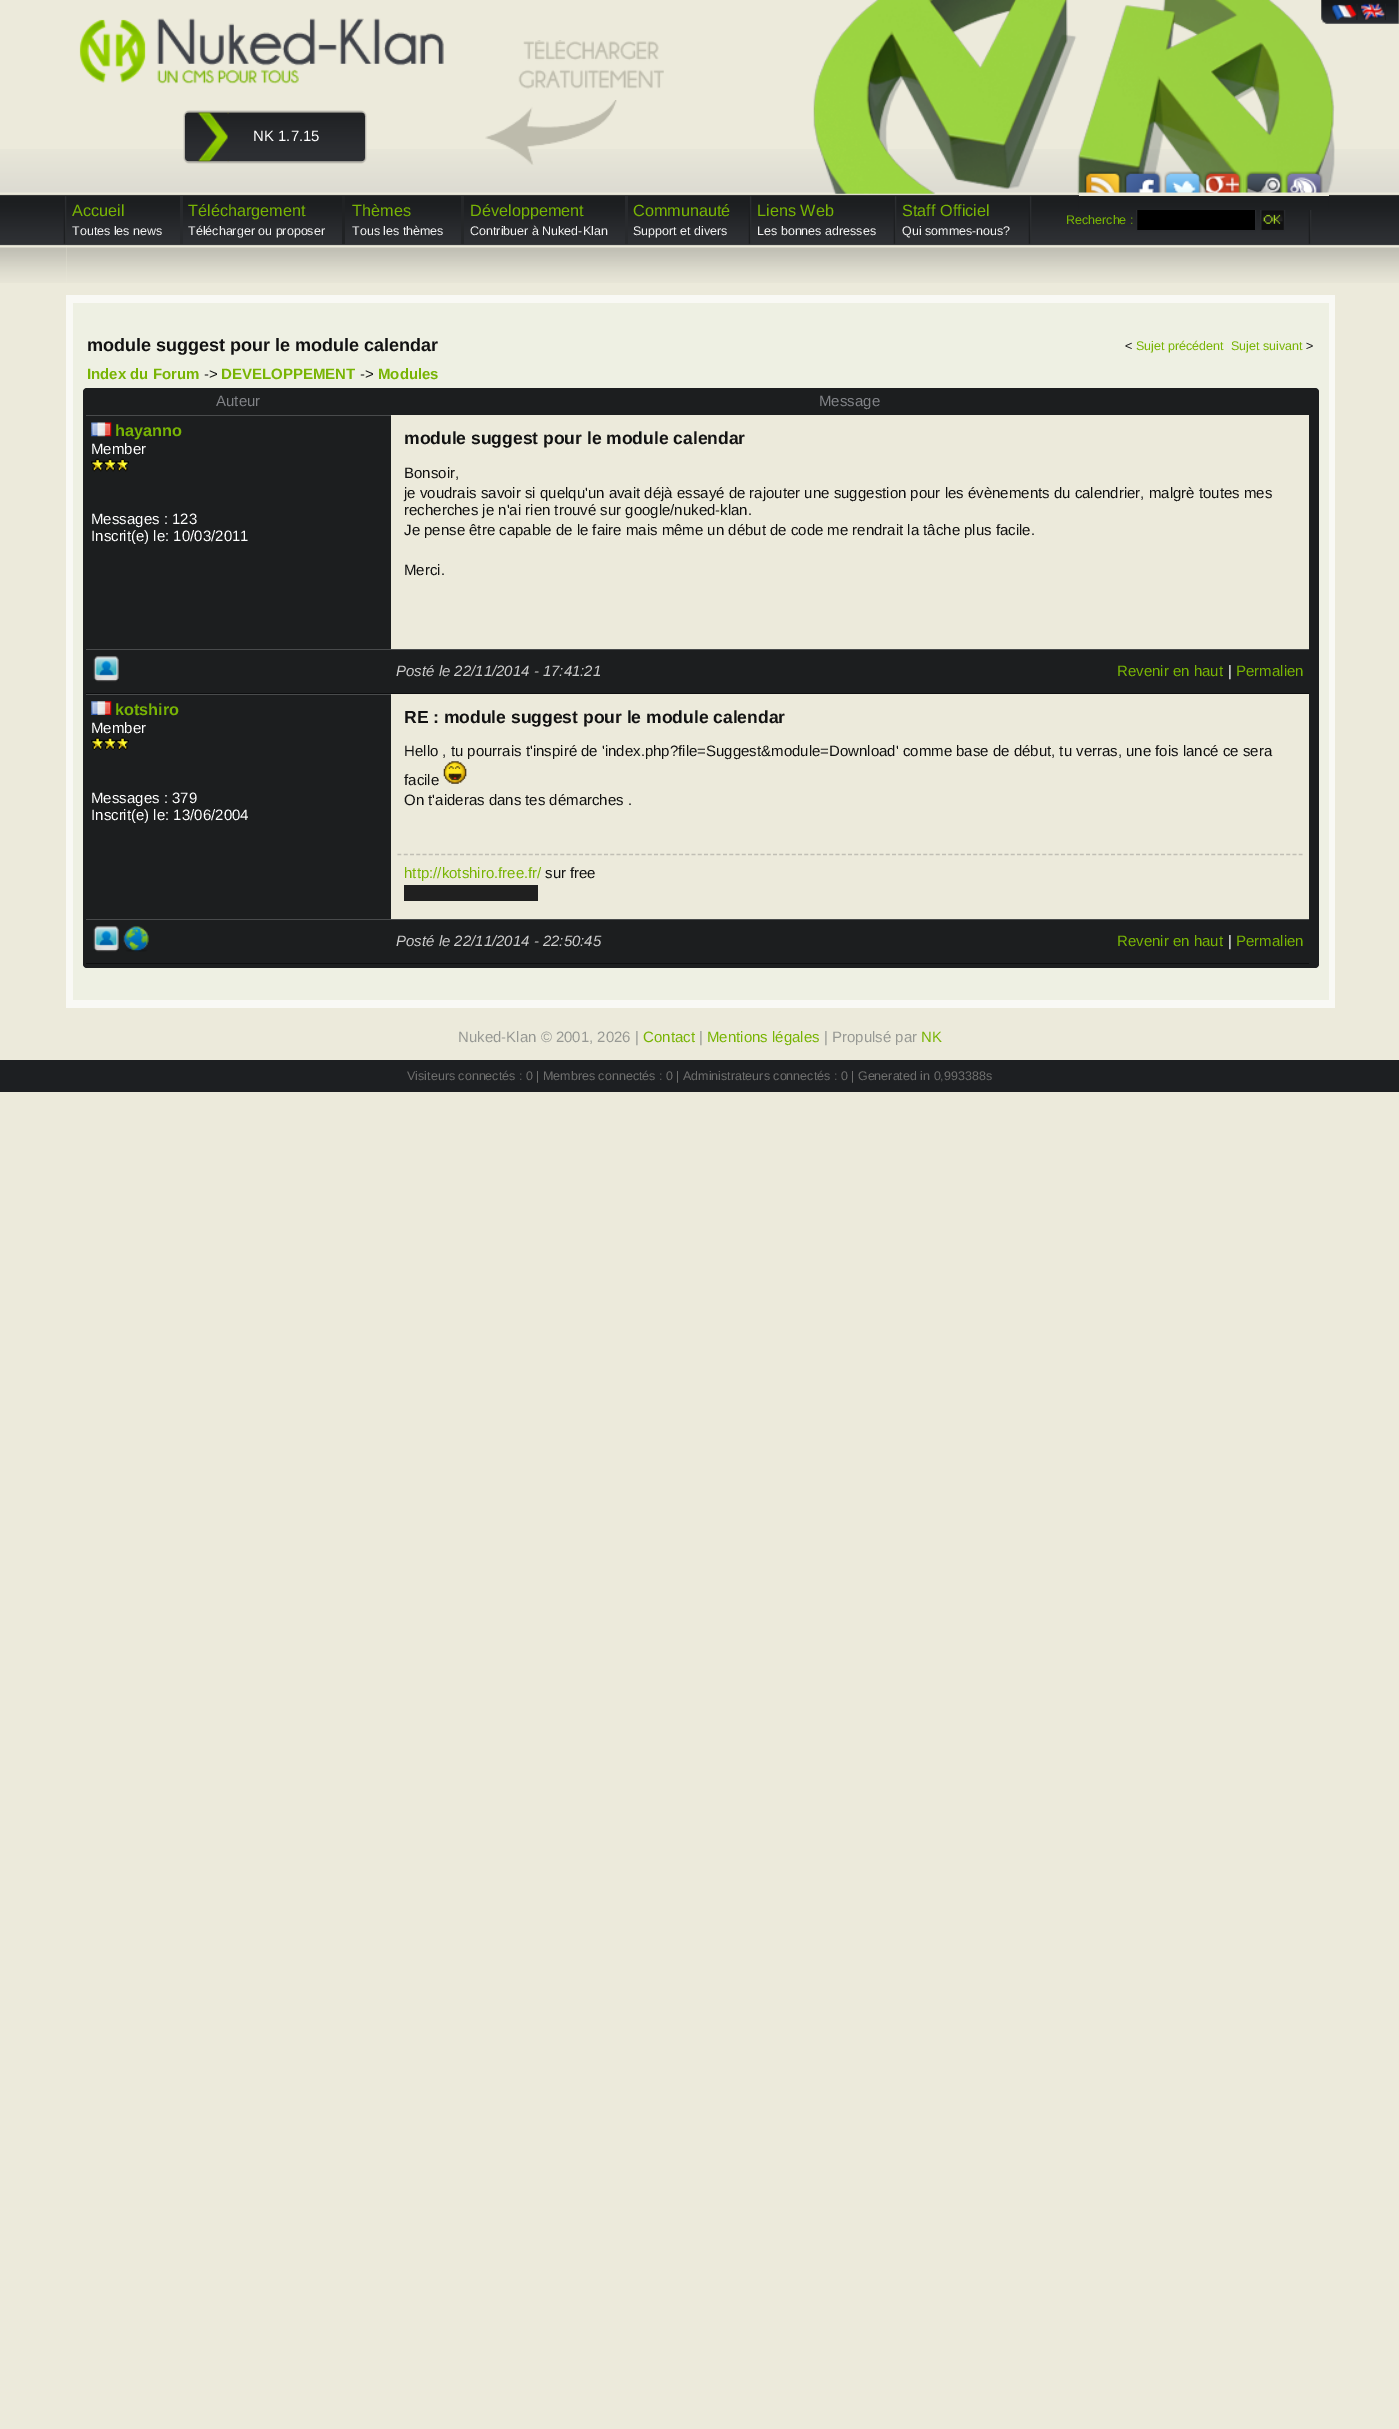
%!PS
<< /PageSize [1399 2429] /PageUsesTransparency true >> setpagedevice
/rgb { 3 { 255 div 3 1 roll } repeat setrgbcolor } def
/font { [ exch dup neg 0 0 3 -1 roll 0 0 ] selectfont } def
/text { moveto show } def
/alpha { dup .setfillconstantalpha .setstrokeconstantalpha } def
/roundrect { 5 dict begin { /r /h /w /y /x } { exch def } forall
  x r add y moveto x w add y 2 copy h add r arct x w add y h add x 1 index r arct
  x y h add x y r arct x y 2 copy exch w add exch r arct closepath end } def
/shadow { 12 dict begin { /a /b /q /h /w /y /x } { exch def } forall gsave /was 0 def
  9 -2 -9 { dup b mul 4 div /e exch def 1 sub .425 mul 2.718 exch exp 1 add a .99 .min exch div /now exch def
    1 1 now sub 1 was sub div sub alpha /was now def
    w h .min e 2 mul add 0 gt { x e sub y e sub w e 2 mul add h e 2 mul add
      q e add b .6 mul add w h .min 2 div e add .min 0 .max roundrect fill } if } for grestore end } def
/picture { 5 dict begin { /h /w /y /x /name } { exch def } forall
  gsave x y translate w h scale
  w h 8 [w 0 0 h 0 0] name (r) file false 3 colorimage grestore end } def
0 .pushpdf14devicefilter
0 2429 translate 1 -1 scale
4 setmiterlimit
236 234 219 rgb
0 0 1399 2429 rectfill
(img_01.rgb) 0 149 1399 134 picture
(img_05.rgb) 813 0 522 194 picture
(img_02.rgb) 1321 0 78 24 picture
(img_03.rgb) 1332 4 26 16 picture
(img_04.rgb) 1361 3 25 17 picture
(img_06.rgb) 79 19 67 64 picture
(img_07.rgb) 157 18 287 48 picture
(img_08.rgb) 157 69 142 15 picture
(img_09.rgb) 518 40 146 49 picture
(img_10.rgb) 485 100 132 65 picture
176 174 166 rgb
184 111 182 52 5 0.5 1 shadow
(img_11.rgb) 184 112 182 50 picture
(img_12.rgb) 197 112 32 50 picture
(img_13.rgb) 1084 171 38 22 picture
(img_14.rgb) 1124 171 38 22 picture
(img_15.rgb) 1164 171 38 22 picture
(img_16.rgb) 1203 171 39 22 picture
(img_17.rgb) 1243 171 40 22 picture
(img_18.rgb) 1285 171 38 22 picture
0 0 0 rgb
1137 210 118 20 rectfill
40 42 46 rgb
1136.5 208.5 119 22 rectstroke
(img_21.rgb) 1261 210 23 20 picture
1260.5 209.5 24 21 rectstroke
(img_19.rgb) 1078 192 251 18 picture
236 234 219 rgb
1079 194 250 2 rectfill
(img_20.rgb) 63 196 4 48 picture
40 42 45 rgb
180 196 3 48 rectfill
32 34 36 rgb
342 196 3 48 rectfill
37 39 41 rgb
461 196 3 48 rectfill
40 42 45 rgb
625 196 3 48 rectfill
(img_20.rgb) 748 196 4 48 picture
(img_20.rgb) 893 196 4 48 picture
(img_20.rgb) 1028 196 4 48 picture
(img_22.rgb) 1308 210 4 34 picture
236 234 219 rgb
66 245 1269 38 rectfill
(img_23.rgb) 66 245 1269 38 picture
249 249 245 rgb
66 295 1269 713 rectfill
238 240 227 rgb
73 303 1256 697 rectfill
28 30 31 rgb
83 388 1236 580 4 roundrect fill
73 75 76 rgb
86 415 305 1 rectfill
(img_24.rgb) 91 422 21 15 picture
(img_25.rgb) 91 458 38 14 picture
236 234 219 rgb
391 415 918 234 rectfill
73 75 76 rgb
86 649 1223 1 rectfill
14 15 16 rgb
86 693 1223 1 rectfill
(img_26.rgb) 93 656 26 26 picture
73 75 76 rgb
86 694 305 1 rectfill
(img_27.rgb) 91 701 21 14 picture
(img_28.rgb) 91 737 38 13 picture
236 234 219 rgb
391 694 918 225 rectfill
(img_29.rgb) 443 761 24 23 picture
193 191 181 rgb
1.2 setlinewidth
[3.75 2.51] 0 setdash
397.5 854.5 moveto 905 0 rlineto stroke
32 32 32 rgb
404 885 134 16 rectfill
73 75 76 rgb
86 919 1223 1 rectfill
14 15 16 rgb
86 963 1223 1 rectfill
(img_26.rgb) 93 926 26 26 picture
(img_30.rgb) 123 926 26 26 picture
29 31 34 rgb
0 1060 1399 32 rectfill
/LiberationSans-Regular 15 font
255 255 255 rgb
(NK 1.7.15) 253 141 text
/LiberationSans-Regular 16.25 font
120 180 4 rgb
(Accueil) 72 216 text
/LiberationSans-Regular 12.5 font
241 241 241 rgb
(Toutes les news) 72 235 text
/LiberationSans-Regular 16.25 font
120 180 4 rgb
(Téléchargement) 188 216 text
/LiberationSans-Regular 12.5 font
241 241 241 rgb
(Télécharger ou proposer) 188 235 text
/LiberationSans-Regular 16.25 font
120 180 4 rgb
(Thèmes) 352 216 text
/LiberationSans-Regular 12.5 font
241 241 241 rgb
(Tous les thèmes) 352 235 text
/LiberationSans-Regular 16.25 font
120 180 4 rgb
(Développement) 470 216 text
/LiberationSans-Regular 12.5 font
241 241 241 rgb
(Contribuer à Nuked-Klan) 470 235 text
/LiberationSans-Regular 16.25 font
120 180 4 rgb
(Communauté) 633 216 text
/LiberationSans-Regular 12.5 font
241 241 241 rgb
(Support et divers) 633 235 text
/LiberationSans-Regular 16.25 font
120 180 4 rgb
(Liens Web) 757 216 text
/LiberationSans-Regular 12.5 font
241 241 241 rgb
(Les bonnes adresses) 757 235 text
/LiberationSans-Regular 16.25 font
120 180 4 rgb
(Staff Officiel) 902 216 text
/LiberationSans-Regular 12.5 font
241 241 241 rgb
(Qui sommes-nous?) 902 235 text
120 180 4 rgb
(Recherche :) 1066 224 text
/LiberationSans-Bold 18 font
18 18 18 rgb
(module suggest pour le module calendar) 87 351 text
/LiberationSans-Regular 12.5 font
(<) 1125 350 text
120 180 4 rgb
(Sujet précédent) 1136 350 text
(Sujet suivant) 1231 350 text
18 18 18 rgb
(>) 1306 350 text
/LiberationSans-Bold 15 font
120 180 4 rgb
(Index du Forum) 87 379 text
/LiberationSans-Regular 15 font
18 18 18 rgb
(->) 204 379 text
/LiberationSans-Bold 15 font
120 180 4 rgb
(DEVELOPPEMENT) 221 379 text
/LiberationSans-Regular 15 font
18 18 18 rgb
(->) 360 379 text
/LiberationSans-Bold 15 font
120 180 4 rgb
(Modules) 378 379 text
/LiberationSans-Regular 15 font
128 130 134 rgb
(Auteur) 216 406 text
(Message) 819 406 text
/LiberationSans-Bold 16.25 font
120 180 4 rgb
(hayanno) 115 436 text
/LiberationSans-Regular 15 font
255 255 255 rgb
(Member) 91 454 text
(Messages : 123) 91 524 text
(Inscrit\(e\) le: 10/03/2011) 91 541 text
/LiberationSans-Bold 17.5 font
18 18 18 rgb
(module suggest pour le module calendar) 404 444 text
/LiberationSans-Regular 15 font
(Bonsoir,) 404 478 text
(je voudrais savoir si quelqu'un avait déjà essayé de rajouter une suggestion pour les évènements du calendrier, malgrè toutes mes) 404 498 text
(recherches je n'ai rien trouvé sur google/nuked-klan.) 404 515 text
(Je pense être capable de le faire mais même un début de code me rendrait la tâche plus facile.) 404 535 text
(Merci.) 404 575 text
/LiberationSans-Italic 15 font
204 204 204 rgb
(Posté le 22/11/2014 - 17:41:21) 396 676 text
/LiberationSans-Regular 15 font
120 180 4 rgb
(Revenir en haut) 1117 676 text
255 255 255 rgb
(|) 1228 676 text
120 180 4 rgb
(Permalien) 1236 676 text
/LiberationSans-Bold 16.25 font
(kotshiro) 115 715 text
/LiberationSans-Regular 15 font
255 255 255 rgb
(Member) 91 733 text
(Messages : 379) 91 803 text
(Inscrit\(e\) le: 13/06/2004) 91 820 text
/LiberationSans-Bold 17.5 font
18 18 18 rgb
(RE : module suggest pour le module calendar) 404 723 text
/LiberationSans-Regular 15 font
(Hello , tu pourrais t'inspiré de 'index.php?file=Suggest&module=Download' comme base de début, tu verras, une fois lancé ce sera) 404 756 text
(facile) 404 785 text
(On t'aideras dans tes démarches .) 404 805 text
120 180 4 rgb
(http://kotshiro.free.fr/) 404 878 text
18 18 18 rgb
(sur free) 545 878 text
/LiberationSans-Italic 15 font
204 204 204 rgb
(Posté le 22/11/2014 - 22:50:45) 396 946 text
/LiberationSans-Regular 15 font
120 180 4 rgb
(Revenir en haut) 1117 946 text
255 255 255 rgb
(|) 1228 946 text
120 180 4 rgb
(Permalien) 1236 946 text
151 153 148 rgb
(Nuked-Klan © 2001, 2026 |) 458 1042 text
120 180 4 rgb
(Contact) 643 1042 text
151 153 148 rgb
(|) 699 1042 text
120 180 4 rgb
(Mentions légales) 707 1042 text
151 153 148 rgb
(| Propulsé par) 824 1042 text
120 180 4 rgb
(NK) 921 1042 text
/LiberationSans-Regular 12.5 font
110 110 109 rgb
(Visiteurs connectés : 0 | Membres connectés : 0 | Administrateurs connectés : 0 | Generated in 0,993388s) 407 1080 text
.poppdf14devicefilter showpage
